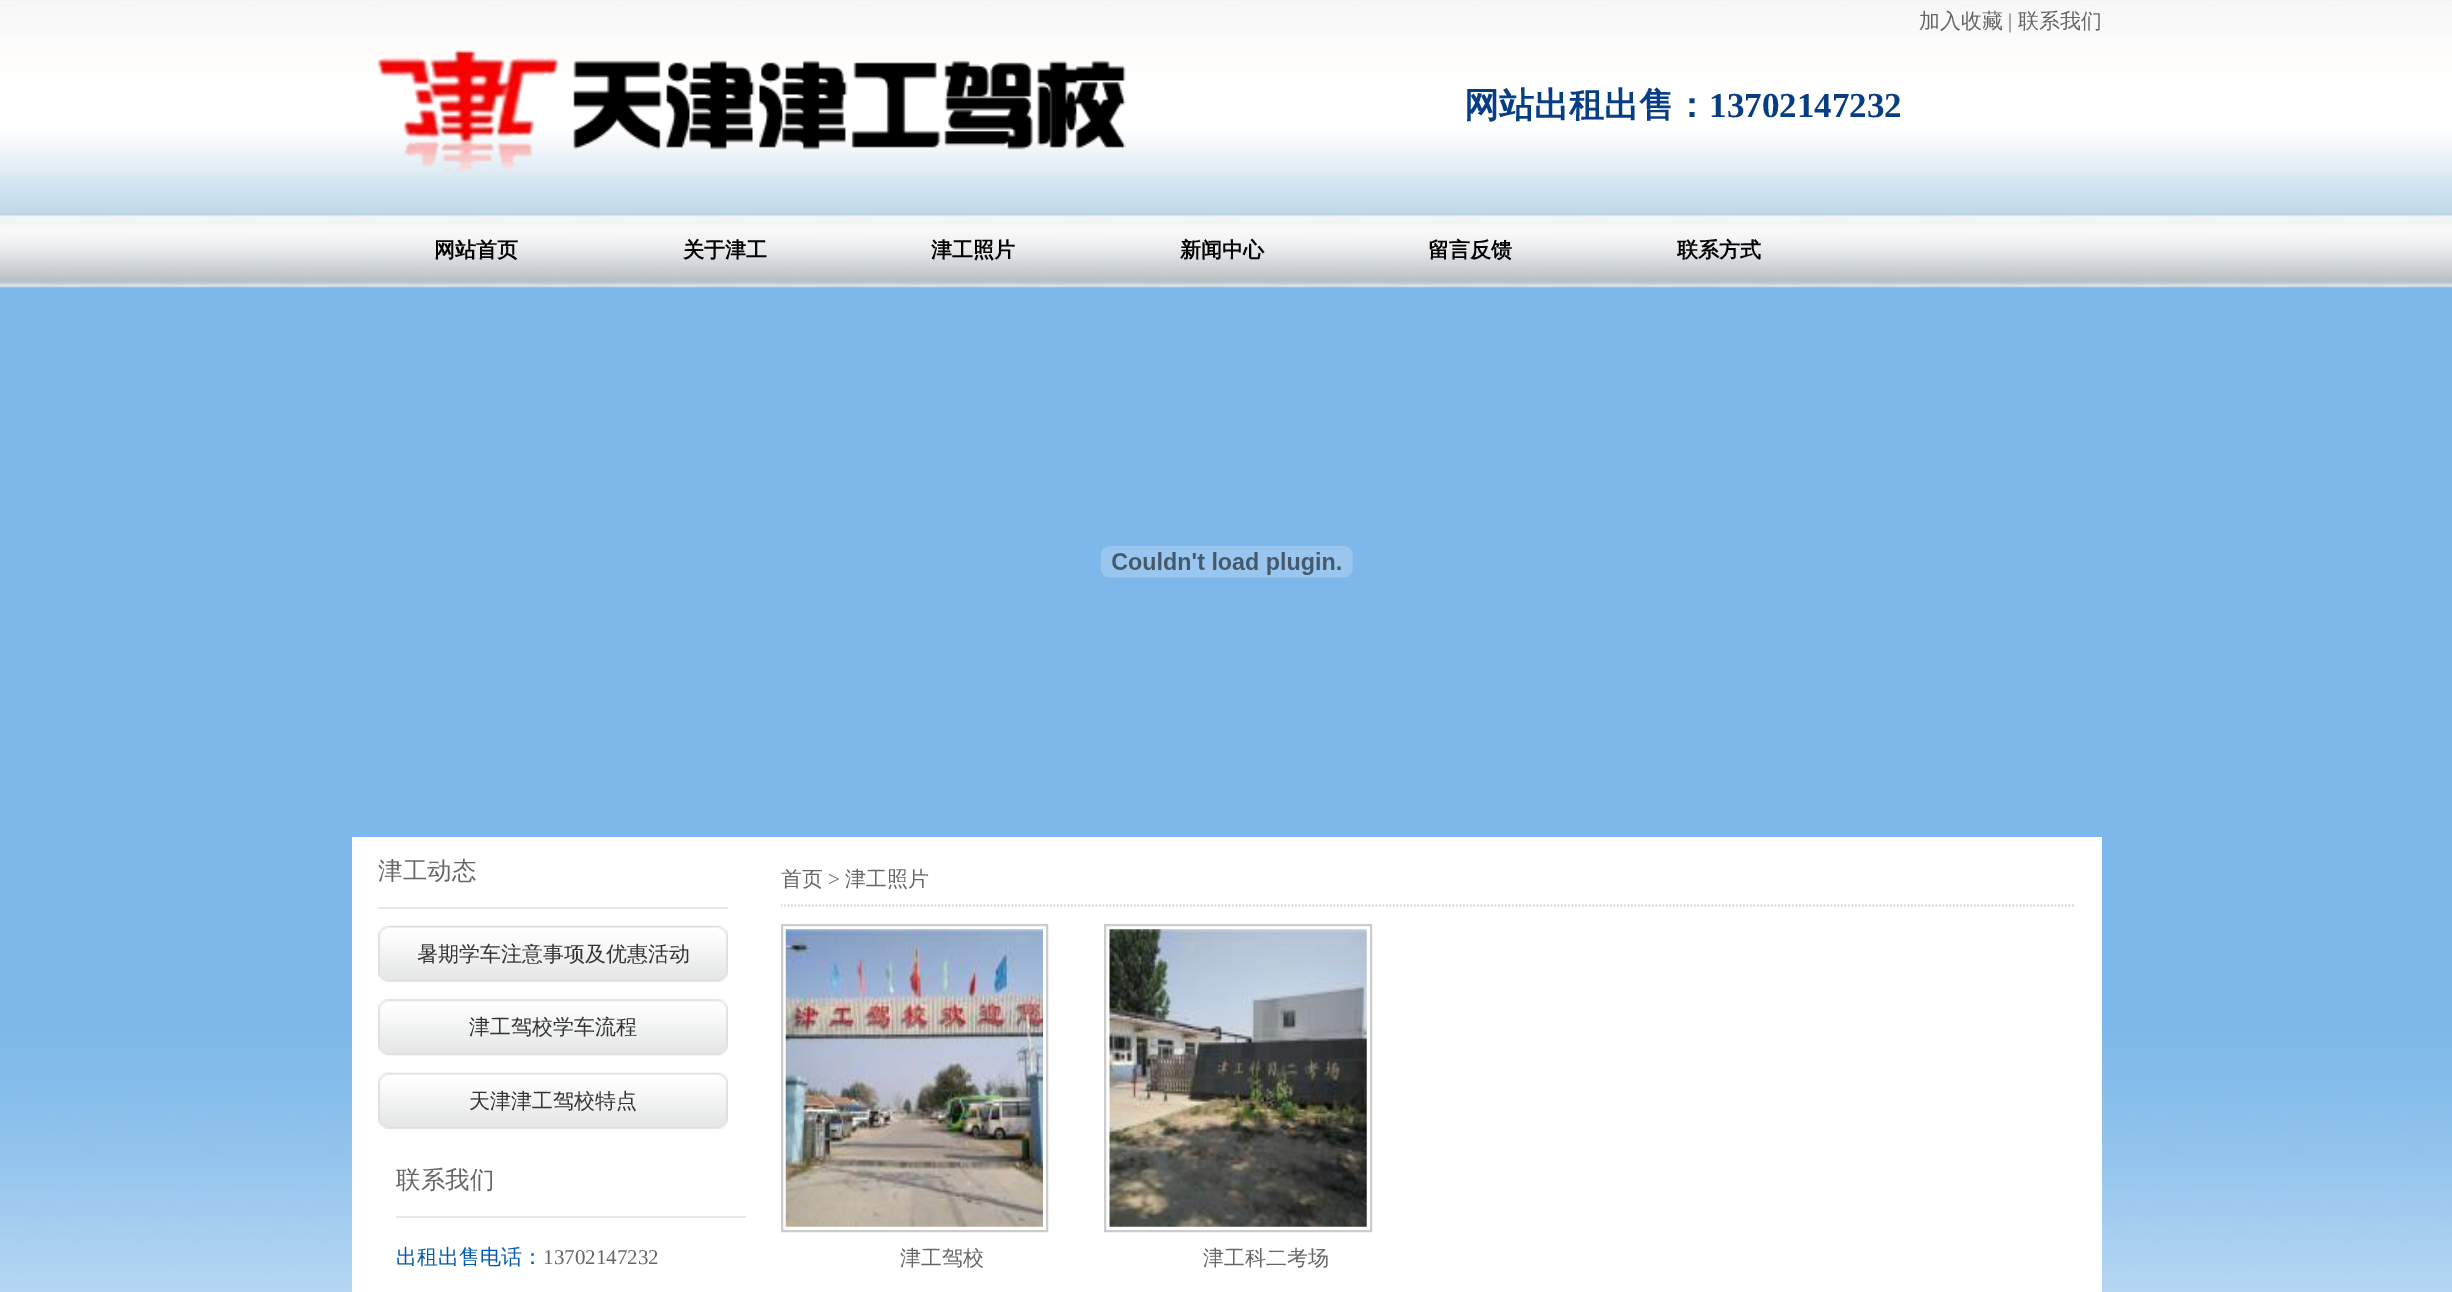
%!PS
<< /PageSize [2452 1292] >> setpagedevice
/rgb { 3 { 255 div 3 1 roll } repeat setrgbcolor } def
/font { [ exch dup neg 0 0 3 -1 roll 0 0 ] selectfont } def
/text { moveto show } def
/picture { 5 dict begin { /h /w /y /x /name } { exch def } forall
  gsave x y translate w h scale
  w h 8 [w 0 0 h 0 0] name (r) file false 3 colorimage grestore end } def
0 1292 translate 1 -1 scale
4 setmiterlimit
255 255 255 rgb
0 0 2452 1292 rectfill
(img_01.rgb) 0 0 2452 1292 picture
(img_02.rgb) 377 50 749 122 picture
(img_03.rgb) 1100 546 253 32 picture
352 837 1750 455 rectfill
231 231 231 rgb
378 907 350 2 rectfill
(img_04.rgb) 378 925 350 57 picture
(img_05.rgb) 378 999 350 57 picture
(img_04.rgb) 378 1072 350 57 picture
396 1216 350 2 rectfill
gsave
781 854 1295 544 rectclip
211 211 211 rgb
1.8 setlinewidth
[1.75 1.75] 0 setdash
780.5 905.5 moveto 1295 0 rlineto stroke
grestore
204 204 204 rgb
2 setlinewidth
782 925 265 306 rectstroke
(img_06.rgb) 785 929 258 298 picture
1105 925 266 306 rectstroke
(img_07.rgb) 1109 929 258 298 picture
/WenQuanYiZenHei-Medium 21 font
102 102 102 rgb
(加入收藏) 1919 28 text
/LiberationSerif-Regular 21 font
(|) 2008 28 text
/WenQuanYiZenHei-Medium 21 font
(联系我们) 2018 28 text
/WenQuanYiZenHei-Bold 35 font
7 61 133 rgb
(网站出租出售：) 1464 117 text
/LiberationSerif-Bold 35 font
(13702147232) 1709 117 text
/WenQuanYiZenHei-Bold 21 font
0 0 0 rgb
(网站首页) 434 257 text
(关于津工) 683 257 text
(津工照片) 931 257 text
(新闻中心) 1180 257 text
(留言反馈) 1428 257 text
(联系方式) 1677 257 text
/WenQuanYiZenHei-Medium 24.5 font
102 102 102 rgb
(津工动态) 378 879 text
/WenQuanYiZenHei-Medium 21 font
51 51 51 rgb
(暑期学车注意事项及优惠活动) 417 961 text
(津工驾校学车流程) 469 1034 text
(天津津工驾校特点) 469 1108 text
/WenQuanYiZenHei-Medium 24.5 font
102 102 102 rgb
(联系我们) 396 1188 text
/WenQuanYiZenHei-Medium 21 font
0 91 174 rgb
(出租出售电话：) 396 1264 text
/LiberationSerif-Regular 21 font
102 102 102 rgb
(13702147232) 543 1264 text
/WenQuanYiZenHei-Medium 21 font
(首页) 781 886 text
/LiberationSerif-Regular 21 font
(>) 828 886 text
/WenQuanYiZenHei-Medium 21 font
(津工照片) 845 886 text
(津工驾校) 900 1265 text
(津工科二考场) 1203 1265 text
showpage
